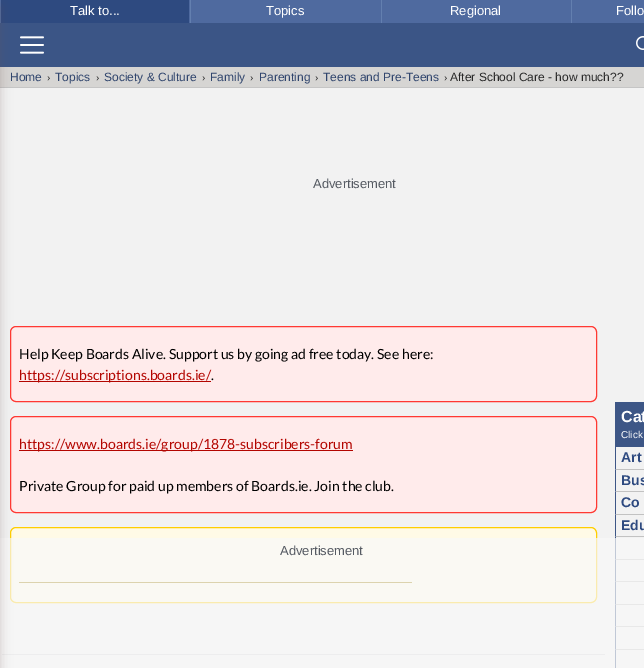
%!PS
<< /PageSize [644 668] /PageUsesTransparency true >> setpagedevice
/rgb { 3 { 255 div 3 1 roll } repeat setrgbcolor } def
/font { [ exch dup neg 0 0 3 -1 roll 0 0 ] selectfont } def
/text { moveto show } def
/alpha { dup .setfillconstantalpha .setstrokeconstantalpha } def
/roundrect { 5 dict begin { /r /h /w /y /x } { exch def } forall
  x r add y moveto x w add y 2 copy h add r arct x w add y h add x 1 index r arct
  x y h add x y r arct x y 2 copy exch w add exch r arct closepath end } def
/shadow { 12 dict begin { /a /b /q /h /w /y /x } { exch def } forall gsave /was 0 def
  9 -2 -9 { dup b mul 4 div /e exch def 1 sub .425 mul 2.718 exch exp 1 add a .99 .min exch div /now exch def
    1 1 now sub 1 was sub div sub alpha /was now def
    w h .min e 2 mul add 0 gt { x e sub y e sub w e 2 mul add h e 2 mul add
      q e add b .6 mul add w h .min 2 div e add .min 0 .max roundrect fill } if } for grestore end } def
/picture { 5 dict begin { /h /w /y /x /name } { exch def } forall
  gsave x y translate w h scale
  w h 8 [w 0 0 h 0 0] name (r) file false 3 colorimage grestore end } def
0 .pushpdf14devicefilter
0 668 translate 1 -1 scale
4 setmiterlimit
242 242 242 rgb
0 0 644 668 rectfill
79 106 159 rgb
0 0 190 23 rectfill
46 74 128 rgb
1 0 188 23 rectfill
59 85 134 rgb
0 23 644 44 rectfill
214 213 211 rgb
0 67 644 20 rectfill
197 197 197 rgb
0 87 644 1 rectfill
255 235 235 rgb
10.5 326.5 586 75 5.5 roundrect gsave fill grestore
255 57 51 rgb
stroke
255 235 235 rgb
10.5 416.5 586 96 5.5 roundrect gsave fill grestore
255 57 51 rgb
stroke
255 250 230 rgb
10.5 527.5 586 75 5.5 roundrect gsave fill grestore
255 206 0 rgb
stroke
211 212 213 rgb
2 654 603 1 rectfill
153 124 0 rgb
19 582 393 1 rectfill
194 194 194 rgb
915 560 moveto -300 0 rlineto 1 -1 rlineto 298 0 rlineto closepath fill
61 86 134 rgb
615 560 moveto 0 -23 rlineto 1 0 rlineto 0 22 rlineto closepath fill
194 194 194 rgb
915 582 moveto -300 0 rlineto 1 -1 rlineto 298 0 rlineto closepath fill
61 86 134 rgb
615 582 moveto 0 -22 rlineto 1 0 rlineto 0 21 rlineto closepath fill
194 194 194 rgb
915 605 moveto -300 0 rlineto 1 -1 rlineto 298 0 rlineto closepath fill
61 86 134 rgb
615 605 moveto 0 -23 rlineto 1 0 rlineto 0 22 rlineto closepath fill
194 194 194 rgb
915 627 moveto -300 0 rlineto 1 -1 rlineto 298 0 rlineto closepath fill
61 86 134 rgb
615 627 moveto 0 -22 rlineto 1 0 rlineto 0 21 rlineto closepath fill
194 194 194 rgb
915 650 moveto -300 0 rlineto 1 -1 rlineto 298 0 rlineto closepath fill
61 86 134 rgb
615 650 moveto 0 -23 rlineto 1 0 rlineto 0 22 rlineto closepath 615 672 moveto 0 -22 rlineto 1 0 rlineto 0 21 rlineto closepath fill
0.7 alpha
248 248 248 rgb
0 538 644 130 rectfill
1 alpha
107 82 82 rgb
-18 6 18 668 0 6 0.3 shadow
79 106 159 rgb
191 0 190 23 rectfill
99 127 175 rgb
190 0 1 23 rectfill
79 106 159 rgb
382 0 189 23 rectfill
99 127 175 rgb
381 0 1 23 rectfill
79 106 159 rgb
572 0 72 23 rectfill
99 127 175 rgb
571 0 1 23 rectfill
(img_01.rgb) 20 36 24 18 picture
(img_02.rgb) 636 36 8 14 picture
179 5 0 rgb
19 381 192 1 rectfill
19 450 334 1 rectfill
194 194 194 rgb
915 470 moveto -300 0 rlineto 1 -1 rlineto 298 0 rlineto closepath fill
61 86 134 rgb
615 470 moveto 0 -68 rlineto 1 0 rlineto 0 67 rlineto closepath fill
616 402 28 45 rectfill
194 194 194 rgb
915 492 moveto -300 0 rlineto 1 -1 rlineto 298 0 rlineto closepath fill
61 86 134 rgb
615 492 moveto 0 -22 rlineto 1 0 rlineto 0 21 rlineto closepath fill
194 194 194 rgb
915 515 moveto -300 0 rlineto 1 -1 rlineto 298 0 rlineto closepath fill
61 86 134 rgb
615 515 moveto 0 -23 rlineto 1 0 rlineto 0 22 rlineto closepath fill
194 194 194 rgb
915 537 moveto -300 0 rlineto 1 -1 rlineto 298 0 rlineto closepath fill
61 86 134 rgb
615 537 moveto 0 -22 rlineto 1 0 rlineto 0 21 rlineto closepath fill
/LiberationSans-Regular 13 font
255 255 255 rgb
(Talk to...) 70 15 text
(Topics) 266 15 text
(Regional) 450 15 text
(Follo) 616 15 text
/LiberationSans-Regular 12 font
48 69 109 rgb
(Home) 10 81 text
/LiberationSans-Regular 10 font
40 40 40 rgb
(›) 47 81 text
/LiberationSans-Regular 12 font
48 69 109 rgb
(Topics) 55 81 text
/LiberationSans-Regular 10 font
40 40 40 rgb
(›) 96 81 text
/LiberationSans-Regular 12 font
48 69 109 rgb
(Society & Culture) 104 81 text
/LiberationSans-Regular 10 font
40 40 40 rgb
(›) 202 81 text
/LiberationSans-Regular 12 font
48 69 109 rgb
(Family) 210 81 text
/LiberationSans-Regular 10 font
40 40 40 rgb
(›) 250 81 text
/LiberationSans-Regular 12 font
48 69 109 rgb
(Parenting) 259 81 text
/LiberationSans-Regular 10 font
40 40 40 rgb
(›) 315 81 text
/LiberationSans-Regular 12 font
48 69 109 rgb
(Teens and Pre-Teens) 323 81 text
/LiberationSans-Regular 10 font
40 40 40 rgb
(›) 444 81 text
/LiberationSans-Regular 12 font
(After School Care - how much??) 450 81 text
/LiberationSans-Regular 13 font
85 90 98 rgb
(Advertisement) 313 188 text
/Lato-Regular 14 font
0 0 0 rgb
(Help Keep Boards Alive. Support us by going ad free today. See here:) 19 359 text
179 5 0 rgb
(https://subscriptions.boards.ie/) 19 380 text
0 0 0 rgb
(.) 211 380 text
179 5 0 rgb
(https://www.boards.ie/group/1878-subscribers-forum) 19 449 text
0 0 0 rgb
(Private Group for paid up members of Boards.ie. Join the club.) 19 491 text
/LiberationSans-Bold 16 font
255 255 255 rgb
(Cat) 621 422 text
/LiberationSans-Regular 10 font
(Click) 621 438 text
/LiberationSans-Bold 14 font
46 74 128 rgb
(Art) 621 462 text
(Bus) 621 485 text
(Co) 621 507 text
(Edu) 621 530 text
/LiberationSans-Regular 13 font
85 90 98 rgb
(Advertisement) 280 555 text
.poppdf14devicefilter showpage
